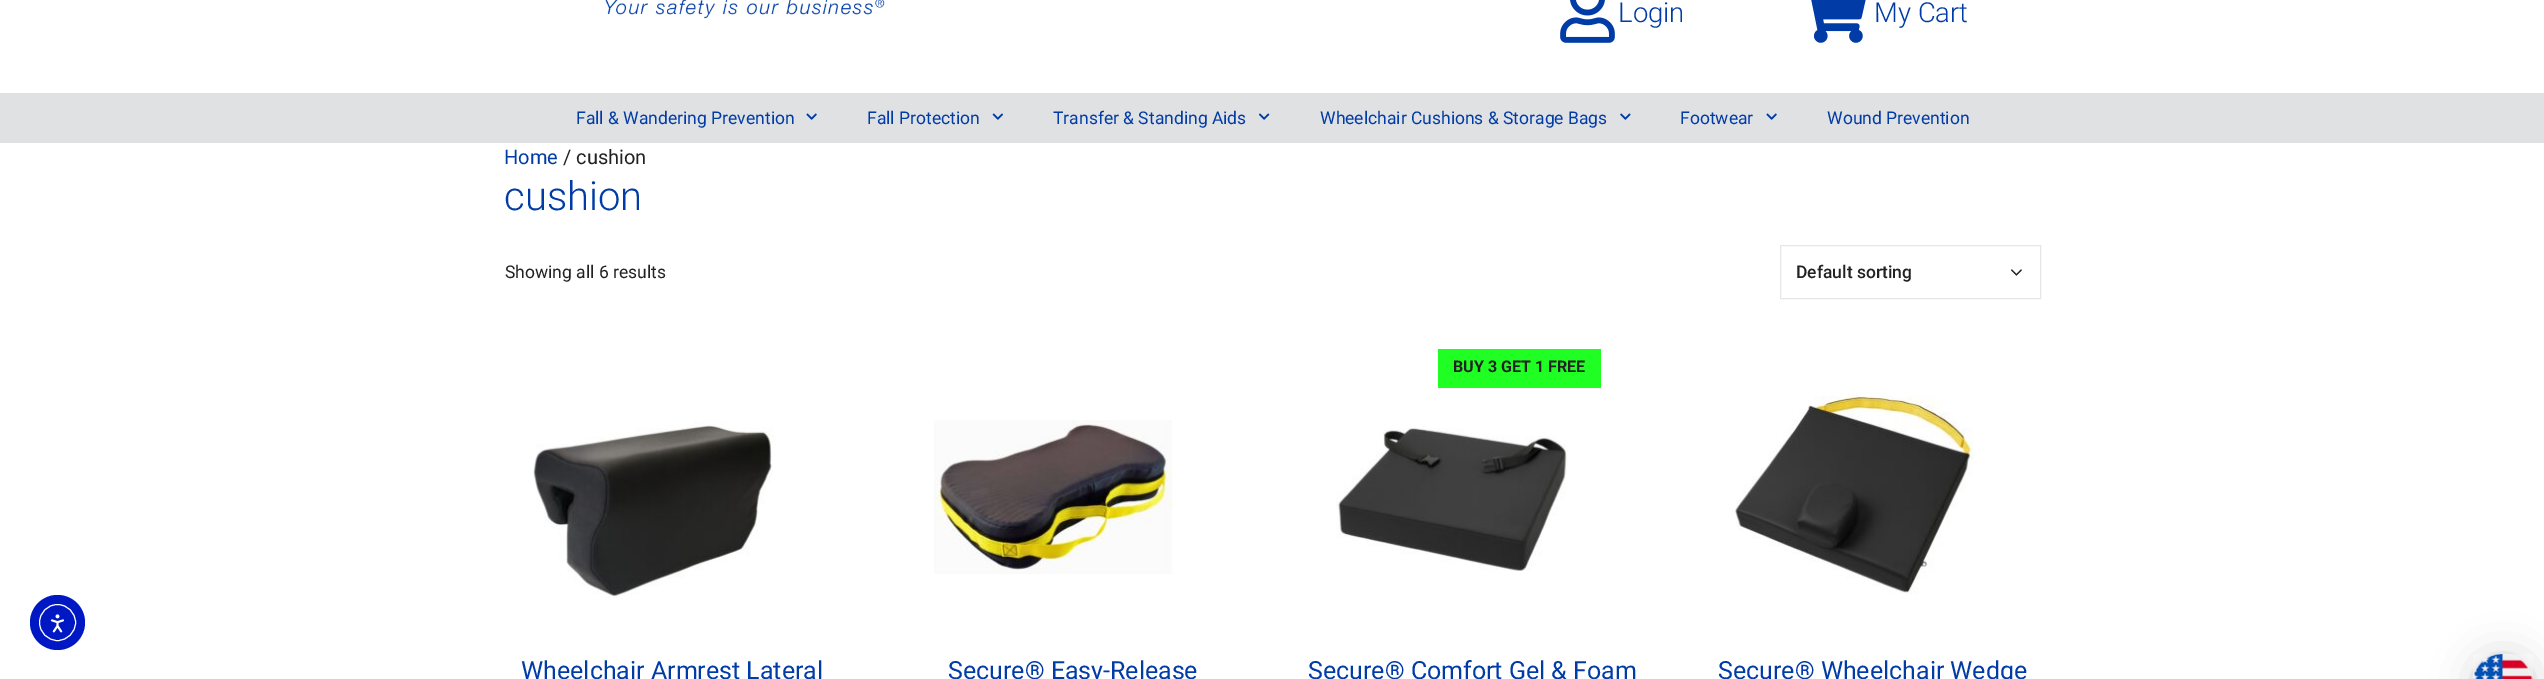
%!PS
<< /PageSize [2544 679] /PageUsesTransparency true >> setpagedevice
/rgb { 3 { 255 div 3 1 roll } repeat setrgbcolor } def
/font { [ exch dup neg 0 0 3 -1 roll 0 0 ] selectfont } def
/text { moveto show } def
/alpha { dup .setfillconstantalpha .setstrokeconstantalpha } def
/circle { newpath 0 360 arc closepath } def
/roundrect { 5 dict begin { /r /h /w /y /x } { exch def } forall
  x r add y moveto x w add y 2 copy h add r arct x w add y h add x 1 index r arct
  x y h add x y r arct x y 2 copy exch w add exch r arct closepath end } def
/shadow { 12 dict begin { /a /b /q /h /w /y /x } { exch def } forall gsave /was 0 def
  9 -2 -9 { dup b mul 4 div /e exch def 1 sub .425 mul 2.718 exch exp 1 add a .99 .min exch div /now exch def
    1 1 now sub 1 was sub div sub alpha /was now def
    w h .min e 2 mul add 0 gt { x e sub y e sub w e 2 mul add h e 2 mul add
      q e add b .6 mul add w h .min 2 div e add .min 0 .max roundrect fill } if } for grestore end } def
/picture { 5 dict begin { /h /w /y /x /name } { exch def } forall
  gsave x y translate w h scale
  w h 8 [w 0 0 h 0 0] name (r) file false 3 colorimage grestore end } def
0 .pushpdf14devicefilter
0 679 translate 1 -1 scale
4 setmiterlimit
255 255 255 rgb
0 0 2544 679 rectfill
(img_01.rgb) 605 0 280 19 picture
(img_02.rgb) 1560 0 55 43 picture
(img_03.rgb) 1811 0 55 43 picture
224 225 227 rgb
0 93 2544 50 rectfill
(img_04.rgb) 806 113 11 7 picture
(img_05.rgb) 992 113 11 7 picture
(img_06.rgb) 1258 113 12 7 picture
(img_07.rgb) 1620 113 11 7 picture
(img_04.rgb) 1766 113 11 7 picture
0 24 196 rgb
57.5 622.5 27.5 circle fill
255 255 255 rgb
57.5 622.5 18 circle stroke
(img_08.rgb) 50 614 14 19 picture
230 230 230 rgb
1780.5 245.5 260 53 rectstroke
(img_09.rgb) 2010 269 12 7 picture
(img_10.rgb) 533 421 240 177 picture
(img_11.rgb) 934 420 240 154 picture
32 255 36 rgb
1438 349 163 39 rectfill
(img_12.rgb) 1336 428 232 143 picture
(img_13.rgb) 1735 395 239 200 picture
0 0 0 rgb
2473 656 60 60 30 20 0.16 shadow
2473 655 60 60 30 4 0.06 shadow
(img_14.rgb) 2473 654 60 25 picture
/Roboto-Light 27.5 font
1 60 166 rgb
(Login) 1618 22 text
(My Cart) 1874 22 text
/Roboto-Regular 17.5 font
(Fall & Wandering Prevention) 576 124 text
(Fall Protection) 867 124 text
(Transfer & Standing Aids) 1053 124 text
(Wheelchair Cushions & Storage Bags) 1320 124 text
(Footwear) 1680 124 text
(Wound Prevention) 1827 124 text
/Roboto-Regular 20 font
(Home) 504 164 text
34 34 34 rgb
(/ cushion) 563 164 text
/Roboto-Light 40 font
1 60 166 rgb
(cushion) 504 210 text
/Roboto-Regular 17.5 font
34 34 34 rgb
(Showing all 6 results) 505 278 text
/Roboto-Medium 17.5 font
(Default sorting) 1796 278 text
/Roboto-Regular 25 font
1 60 166 rgb
(Wheelchair Armrest Lateral) 521 679 text
(Secure® Easy-Release) 948 679 text
/Roboto-Bold 16 font
34 34 34 rgb
(BUY 3 GET 1 FREE) 1453 372 text
/Roboto-Regular 25 font
1 60 166 rgb
(Secure® Comfort Gel & Foam) 1308 679 text
(Secure® Wheelchair Wedge) 1718 679 text
.poppdf14devicefilter showpage
